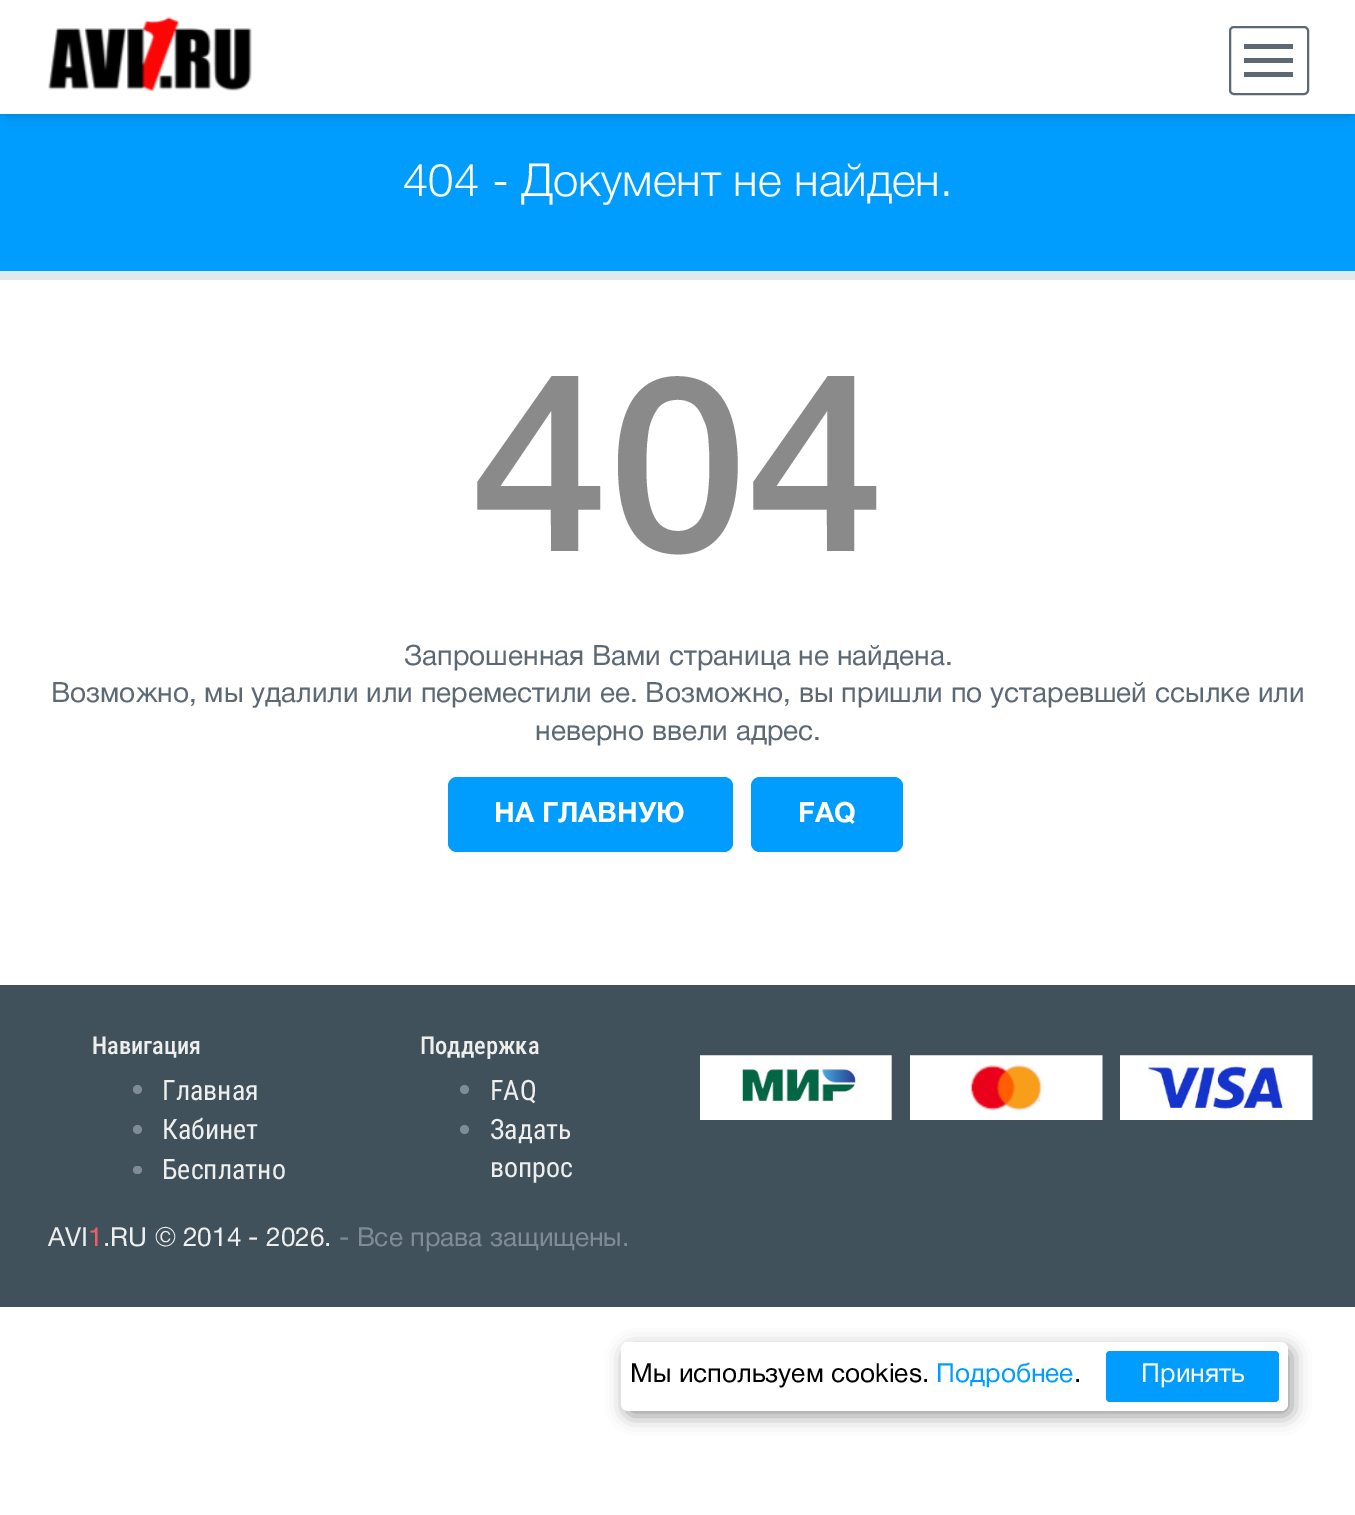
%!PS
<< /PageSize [1355 1515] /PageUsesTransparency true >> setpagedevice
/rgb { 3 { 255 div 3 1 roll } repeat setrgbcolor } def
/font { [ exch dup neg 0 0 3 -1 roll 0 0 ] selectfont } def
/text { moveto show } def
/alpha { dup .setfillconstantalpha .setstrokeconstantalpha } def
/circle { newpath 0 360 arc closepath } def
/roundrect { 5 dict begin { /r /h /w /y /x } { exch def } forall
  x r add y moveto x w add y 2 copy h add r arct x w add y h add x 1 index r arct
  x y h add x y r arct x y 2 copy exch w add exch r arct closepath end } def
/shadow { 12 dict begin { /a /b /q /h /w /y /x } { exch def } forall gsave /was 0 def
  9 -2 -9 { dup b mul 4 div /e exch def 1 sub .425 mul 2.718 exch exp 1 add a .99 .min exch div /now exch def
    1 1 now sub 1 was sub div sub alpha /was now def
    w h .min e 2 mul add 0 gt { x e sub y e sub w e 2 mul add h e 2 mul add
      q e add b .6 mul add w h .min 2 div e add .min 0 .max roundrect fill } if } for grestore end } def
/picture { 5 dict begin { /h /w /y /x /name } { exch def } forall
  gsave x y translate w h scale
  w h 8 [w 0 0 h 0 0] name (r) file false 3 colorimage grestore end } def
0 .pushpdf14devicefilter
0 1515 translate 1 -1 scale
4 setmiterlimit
255 255 255 rgb
0 0 1355 1515 rectfill
0 157 255 rgb
0 116 1355 155 rectfill
3 153 248 rgb
0 114 1355 2 rectfill
0 0 0 rgb
7 12 1342 100 0 8 0.25 shadow
255 255 255 rgb
0 0 1355 114 rectfill
(img_01.rgb) 48 17 204 74 picture
92 104 115 rgb
2 setlinewidth
1230 27 78 67 4 roundrect stroke
1244 44 49 5 rectfill
1244 58 49 5 rectfill
1244 72 49 5 rectfill
224 234 236 rgb
0 271 1355 9 rectfill
0 157 255 rgb
448 777 285 75 9 roundrect fill
751 777 152 75 9 roundrect fill
65 81 91 rgb
0 985 1355 322 rectfill
127 140 151 rgb
137.5 1089.5 4.5 circle fill
137.5 1129.5 4.5 circle fill
133 1166 9 8 4 roundrect fill
464.5 1089.5 4.5 circle fill
464.5 1129.5 4.5 circle fill
(img_02.rgb) 700 1055 613 65 picture
0 0 0 rgb
625 1348 667 68 7 9 0.4 shadow
255 255 255 rgb
621 1342 667 69 7 roundrect fill
0 157 255 rgb
1106 1351 173 51 4 roundrect fill
/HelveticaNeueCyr-Light 45.5 font
255 255 255 rgb
(404 - Документ не найден.) 403 196 text
/HelveticaNeueCyr-Medium 248 font
138 138 138 rgb
(404) 471 551 text
/HelveticaNeueCyr-Regular 28 font
92 104 115 rgb
(Запрошенная Вами страница не найдена.) 404 665 text
(Возможно, мы удалили или переместили ее. Возможно, вы пришли по устаревшей ссылке или) 51 702 text
(неверно ввели адрес.) 535 740 text
/HelveticaNeueCyr-Bold 28 font
255 255 255 rgb
(НА ГЛАВНУЮ) 494 822 text
(FAQ) 798 822 text
/RobotoCondensed-Medium 24.5 font
238 238 238 rgb
(Навигация) 92 1054 text
/RobotoCondensed-Regular 28 font
(Главная) 162 1100 text
(Кабинет) 162 1139 text
(Бесплатно) 162 1179 text
/RobotoCondensed-Medium 24.5 font
(Поддержка) 420 1054 text
/RobotoCondensed-Regular 28 font
(FAQ) 490 1100 text
(Задать) 490 1139 text
(вопрос) 490 1177 text
/HelveticaNeueCyr-Regular 26.25 font
(AVI) 48 1246 text
235 93 104 rgb
(1) 88 1246 text
238 238 238 rgb
(.RU © 2014 - 2026.) 103 1246 text
127 140 151 rgb
(- Все права защищены.) 339 1246 text
0 0 0 rgb
(Мы используем cookies.) 630 1382 text
0 157 255 rgb
(Подробнее) 936 1382 text
0 0 0 rgb
(.) 1074 1382 text
255 255 255 rgb
(Принять) 1141 1382 text
.poppdf14devicefilter showpage
